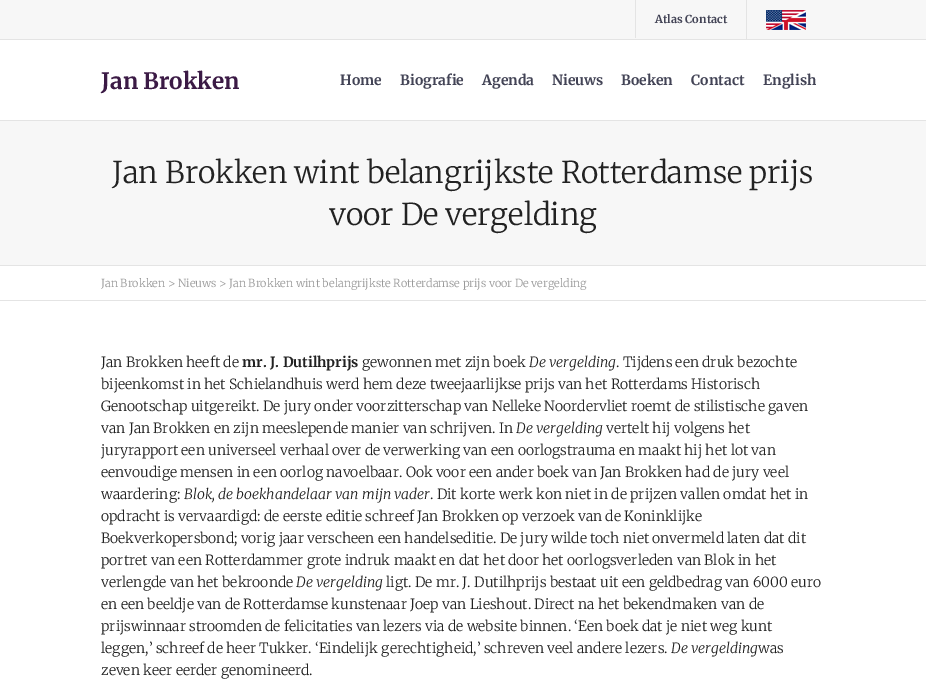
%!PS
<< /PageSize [926 695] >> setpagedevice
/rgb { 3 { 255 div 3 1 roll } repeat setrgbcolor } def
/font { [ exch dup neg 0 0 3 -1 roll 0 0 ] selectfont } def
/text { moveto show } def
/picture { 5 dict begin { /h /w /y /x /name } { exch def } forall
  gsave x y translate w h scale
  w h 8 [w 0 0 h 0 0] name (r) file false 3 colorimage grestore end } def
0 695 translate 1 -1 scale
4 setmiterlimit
255 255 255 rgb
0 0 926 695 rectfill
247 247 247 rgb
0 0 926 39 rectfill
228 228 228 rgb
0 39 926 1 rectfill
635 0 1 38 rectfill
746 0 1 39 rectfill
(img_01.rgb) 766 10 40 20 picture
0 120 926 1 rectfill
247 247 247 rgb
0 121 926 144 rectfill
228 228 228 rgb
0 265 926 1 rectfill
0 300 926 1 rectfill
/Merriweather-Bold 11 font
67 68 86 rgb
(Atlas Contact) 655 23 text
/Merriweather-Bold 22.5 font
59 26 69 rgb
(Jan Brokken) 101 89 text
/Merriweather-Bold 14 font
67 68 86 rgb
(Home) 340 85 text
(Biografie) 400 85 text
(Agenda) 482 85 text
(Nieuws) 552 85 text
(Boeken) 621 85 text
(Contact) 691 85 text
(English) 763 85 text
/Merriweather-Light 30 font
34 34 34 rgb
(Jan Brokken wint belangrijkste Rotterdamse prijs) 112 183 text
(voor De vergelding) 329 225 text
/Merriweather-Light 11 font
153 153 153 rgb
(Jan Brokken > Nieuws > Jan Brokken wint belangrijkste Rotterdamse prijs voor De vergelding) 101 287 text
/Merriweather-Light 14 font
34 34 34 rgb
(Jan Brokken heeft de) 101 367 text
/Merriweather-Bold 14 font
(mr. J. Dutilhprijs) 242 367 text
/Merriweather-Light 14 font
(gewonnen met zijn boek) 362 367 text
/Merriweather-LightItalic 14 font
(De vergelding) 529 367 text
/Merriweather-Light 14 font
(. Tijdens een druk bezochte) 616 367 text
(bijeenkomst in het Schielandhuis werd hem deze tweejaarlijkse prijs van het Rotterdams Historisch) 101 389 text
(Genootschap uitgereikt. De jury onder voorzitterschap van Nelleke Noordervliet roemt de stilistische gaven) 101 411 text
(van Jan Brokken en zijn meeslepende manier van schrijven. In) 101 433 text
/Merriweather-LightItalic 14 font
(De vergelding) 516 433 text
/Merriweather-Light 14 font
(vertelt hij volgens het) 606 433 text
(juryrapport een universeel verhaal over de verwerking van een oorlogstrauma en maakt hij het lot van) 101 455 text
(eenvoudige mensen in een oorlog navoelbaar. Ook voor een ander boek van Jan Brokken had de jury veel) 101 477 text
(waardering:) 101 499 text
/Merriweather-LightItalic 14 font
(Blok, de boekhandelaar van mijn vader) 184 499 text
/Merriweather-Light 14 font
(. Dit korte werk kon niet in de prijzen vallen omdat het in) 430 499 text
(opdracht is vervaardigd: de eerste editie schreef Jan Brokken op verzoek van de Koninklijke) 101 521 text
(Boekverkopersbond; vorig jaar verscheen een handelseditie. De jury wilde toch niet onvermeld laten dat dit) 101 543 text
(portret van een Rotterdammer grote indruk maakt en dat het door het oorlogsverleden van Blok in het) 101 565 text
(verlengde van het bekroonde) 101 587 text
/Merriweather-LightItalic 14 font
(De vergelding) 296 587 text
/Merriweather-Light 14 font
(ligt. De mr. J. Dutilhprijs bestaat uit een geldbedrag van 6000 euro) 386 587 text
(en een beeldje van de Rotterdamse kunstenaar Joep van Lieshout. Direct na het bekendmaken van de) 101 609 text
(prijswinnaar stroomden de felicitaties van lezers via de website binnen. ‘Een boek dat je niet weg kunt) 101 631 text
(leggen,’ schreef de heer Tukker. ‘Eindelijk gerechtigheid,’ schreven veel andere lezers.) 101 653 text
/Merriweather-LightItalic 14 font
(De vergelding) 671 653 text
/Merriweather-Light 14 font
(was) 758 653 text
(zeven keer eerder genomineerd.) 101 675 text
showpage
